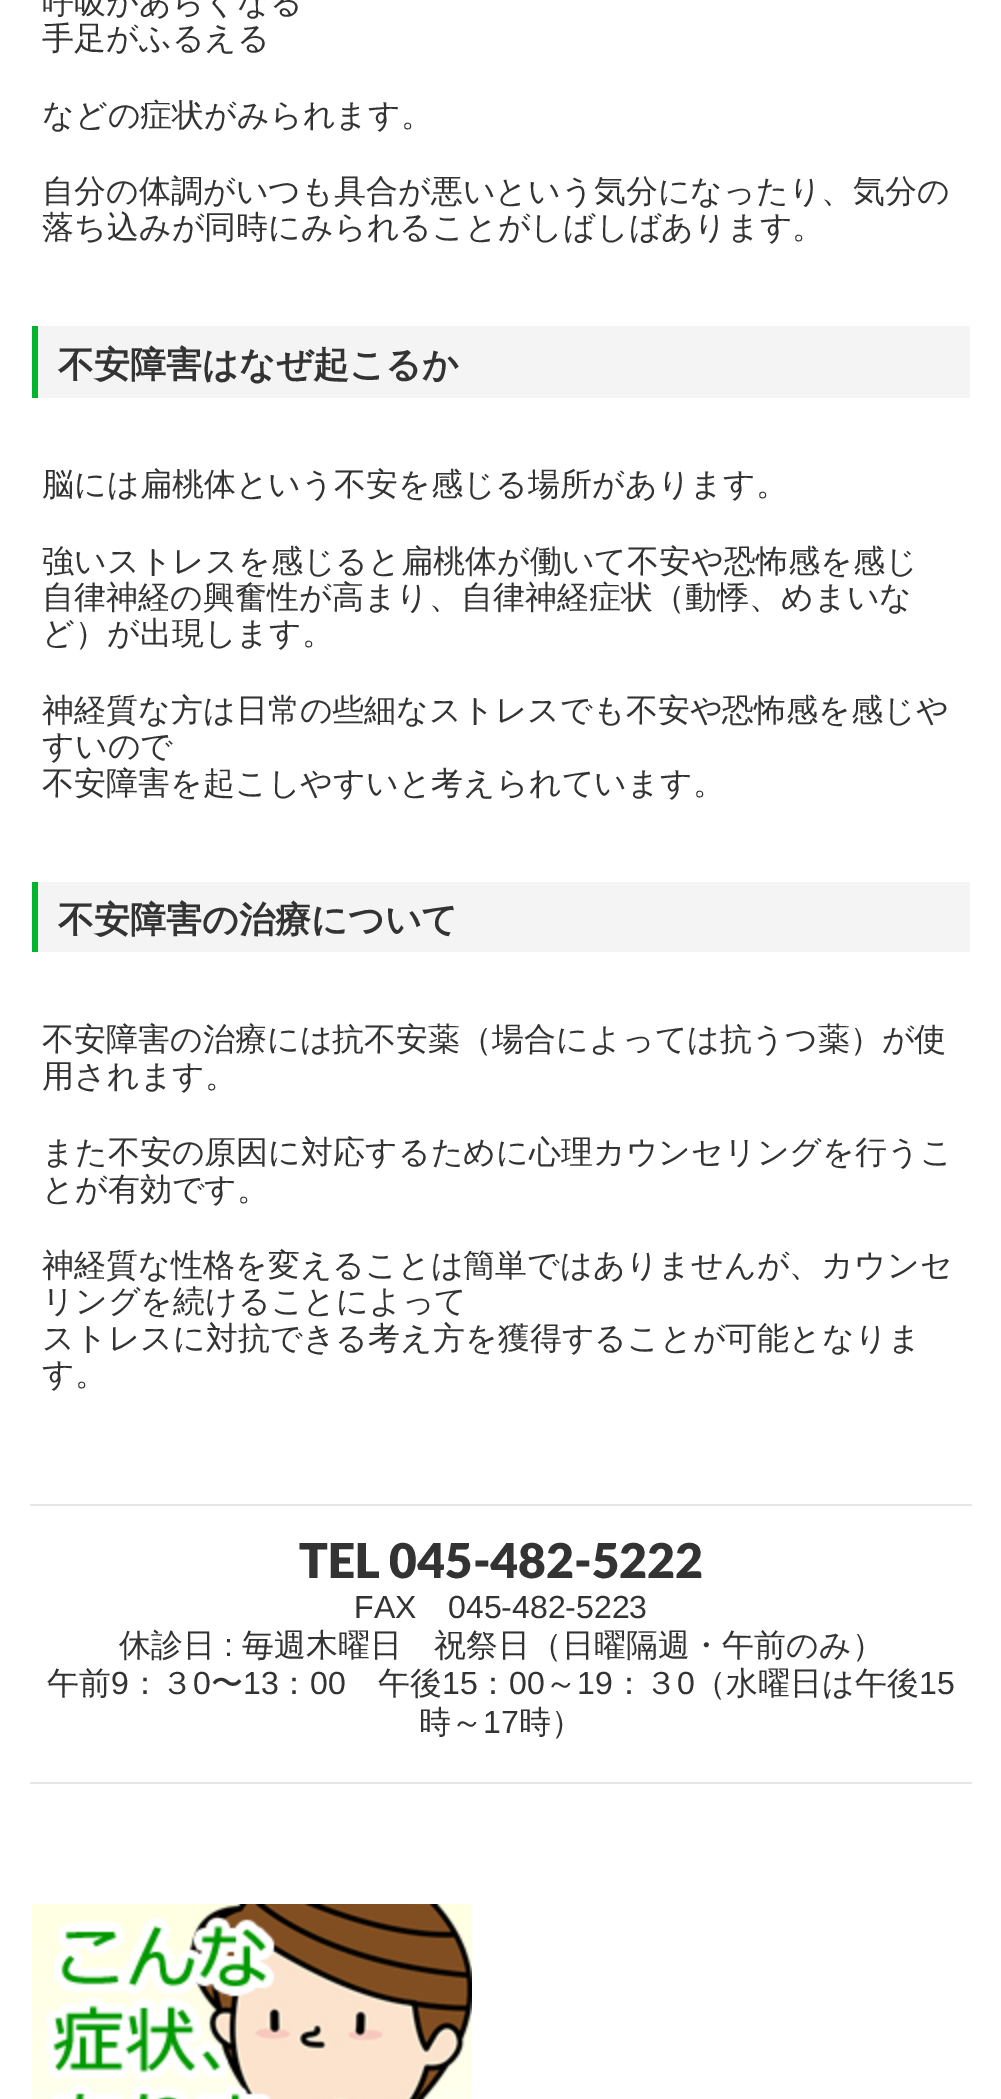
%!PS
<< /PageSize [1001 2099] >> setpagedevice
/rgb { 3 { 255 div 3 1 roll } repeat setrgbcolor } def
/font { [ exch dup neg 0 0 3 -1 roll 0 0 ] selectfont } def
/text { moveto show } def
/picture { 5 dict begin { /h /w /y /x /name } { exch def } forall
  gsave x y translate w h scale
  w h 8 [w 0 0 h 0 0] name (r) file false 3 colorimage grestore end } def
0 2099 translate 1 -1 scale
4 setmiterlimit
255 255 255 rgb
0 0 1001 2099 rectfill
244 244 244 rgb
38 326 932 72 rectfill
0 181 45 rgb
32 326 6 72 rectfill
244 244 244 rgb
38 882 932 70 rectfill
0 181 45 rgb
32 882 6 70 rectfill
230 230 230 rgb
30 1504 942 2 rectfill
30 1782 942 2 rectfill
(img_01.rgb) 32 1904 440 195 picture
/WenQuanYiZenHei-Medium 32 font
51 51 51 rgb
(呼吸があらくなる) 42 13 text
(手足がふるえる) 42 49 text
(などの症状がみられます。) 42 126 text
(自分の体調がいつも具合が悪いという気分になったり、気分の) 42 202 text
(落ち込みが同時にみられることがしばしばあります。) 42 238 text
/WenQuanYiZenHei-Bold 36 font
(不安障害はなぜ起こるか) 58 377 text
/WenQuanYiZenHei-Medium 32 font
(脳には扁桃体という不安を感じる場所があります。) 42 495 text
(強いストレスを感じると扁桃体が働いて不安や恐怖感を感じ) 42 572 text
(自律神経の興奮性が高まり、自律神経症状（動悸、めまいな) 42 608 text
(ど）が出現します。) 42 644 text
(神経質な方は日常の些細なストレスでも不安や恐怖感を感じや) 42 721 text
(すいので) 42 757 text
(不安障害を起こしやすいと考えられています。) 42 794 text
/WenQuanYiZenHei-Bold 36 font
(不安障害の治療について) 58 932 text
/WenQuanYiZenHei-Medium 32 font
(不安障害の治療には抗不安薬（場合によっては抗うつ薬）が使) 42 1050 text
(用されます。) 42 1087 text
(また不安の原因に対応するために心理カウンセリングを行うこ) 42 1163 text
(とが有効です。) 42 1200 text
(神経質な性格を変えることは簡単ではありませんが、カウンセ) 42 1276 text
(リングを続けることによって) 42 1312 text
(ストレスに対抗できる考え方を獲得することが可能となりま) 42 1349 text
(す。) 42 1385 text
/Lato-Black 48 font
(TEL 045-482-5222) 299 1578 text
/LiberationSans-Regular 32 font
(FAX) 354 1618 text
(045-482-5223) 448 1618 text
/WenQuanYiZenHei-Medium 32 font
(休診日) 119 1656 text
/LiberationSans-Regular 32 font
(:) 224 1656 text
/WenQuanYiZenHei-Medium 32 font
(毎週木曜日　祝祭日（日曜隔週・午前のみ）) 242 1656 text
(午前) 47 1694 text
/LiberationSans-Regular 32 font
(9) 111 1694 text
/WenQuanYiZenHei-Medium 32 font
(：３) 129 1694 text
/LiberationSans-Regular 32 font
(0) 193 1694 text
/WenQuanYiZenHei-Medium 32 font
(〜) 211 1694 text
/LiberationSans-Regular 32 font
(13) 243 1694 text
/WenQuanYiZenHei-Medium 32 font
(：) 278 1694 text
/LiberationSans-Regular 32 font
(00) 310 1694 text
/WenQuanYiZenHei-Medium 32 font
(午後) 378 1694 text
/LiberationSans-Regular 32 font
(15) 442 1694 text
/WenQuanYiZenHei-Medium 32 font
(：) 477 1694 text
/LiberationSans-Regular 32 font
(00) 509 1694 text
/WenQuanYiZenHei-Medium 32 font
(～) 545 1694 text
/LiberationSans-Regular 32 font
(19) 577 1694 text
/WenQuanYiZenHei-Medium 32 font
(：３) 613 1694 text
/LiberationSans-Regular 32 font
(0) 677 1694 text
/WenQuanYiZenHei-Medium 32 font
(（水曜日は午後) 694 1694 text
/LiberationSans-Regular 32 font
(15) 919 1694 text
/WenQuanYiZenHei-Medium 32 font
(時～) 419 1733 text
/LiberationSans-Regular 32 font
(17) 483 1733 text
/WenQuanYiZenHei-Medium 32 font
(時）) 519 1733 text
showpage
